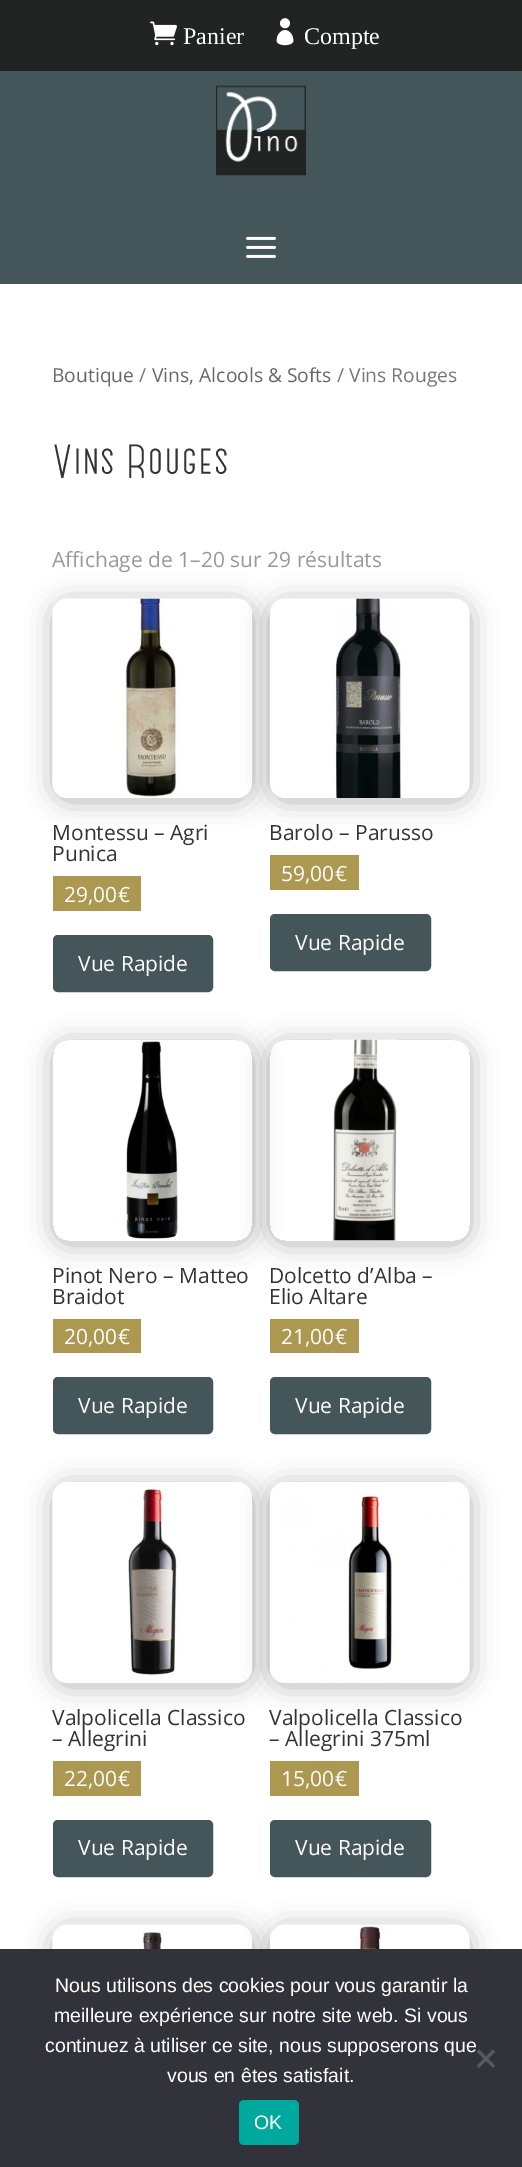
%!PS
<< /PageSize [522 2167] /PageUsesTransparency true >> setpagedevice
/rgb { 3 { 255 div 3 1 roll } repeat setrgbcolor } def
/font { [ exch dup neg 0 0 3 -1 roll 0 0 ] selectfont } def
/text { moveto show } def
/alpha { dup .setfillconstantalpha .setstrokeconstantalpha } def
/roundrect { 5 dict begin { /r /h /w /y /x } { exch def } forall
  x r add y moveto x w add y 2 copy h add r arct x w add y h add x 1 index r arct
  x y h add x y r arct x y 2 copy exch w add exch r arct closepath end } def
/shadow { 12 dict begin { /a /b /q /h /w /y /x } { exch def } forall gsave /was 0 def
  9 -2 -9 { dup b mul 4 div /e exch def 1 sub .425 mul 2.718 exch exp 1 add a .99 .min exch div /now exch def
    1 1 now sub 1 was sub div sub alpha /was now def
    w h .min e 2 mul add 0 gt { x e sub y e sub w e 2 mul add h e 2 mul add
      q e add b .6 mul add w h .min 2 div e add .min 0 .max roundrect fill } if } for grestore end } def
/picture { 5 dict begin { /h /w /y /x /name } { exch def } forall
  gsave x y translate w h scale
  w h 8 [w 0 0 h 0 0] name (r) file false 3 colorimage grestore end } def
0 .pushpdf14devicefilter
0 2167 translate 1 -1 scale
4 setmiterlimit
255 255 255 rgb
0 0 522 2167 rectfill
34 36 36 rgb
0 0 522 71 rectfill
(img_01.rgb) 150 21 27 25 picture
(img_02.rgb) 276 18 18 28 picture
69 86 90 rgb
0 71 522 213 rectfill
(img_03.rgb) 216 85 90 91 picture
(img_04.rgb) 246 236 30 22 picture
0 0 0 rgb
53 602 199 199 15 13.5 0.3 shadow
(img_05.rgb) 52 598 200 200 picture
173 152 81 rgb
53 876 88 35 rectfill
69 86 91 rgb
55.5 937.5 155 52 2.5 roundrect gsave fill grestore
5 setlinewidth
stroke
0 0 0 rgb
270 602 200 199 15 13.5 0.3 shadow
(img_06.rgb) 270 598 200 200 picture
173 152 81 rgb
270 855 89 35 rectfill
69 86 91 rgb
272.5 916.5 156 52 2.5 roundrect gsave fill grestore
stroke
gsave
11 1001 moveto 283 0 rlineto 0 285 rlineto -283 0 rlineto closepath 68 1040 moveto 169 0 rlineto 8.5 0 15 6.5 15 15 rcurveto 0 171 rlineto 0 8.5 -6.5 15 -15 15 rcurveto -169 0 rlineto -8.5 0 -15 -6.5 -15 -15 rcurveto 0 -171 rlineto 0 -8.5 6.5 -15 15 -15 rcurveto closepath eoclip newpath
0 0 0 rgb
53 1043 199 201 15 13.5 0.3 shadow
grestore
(img_07.rgb) 126 1041 52 198 picture
173 152 81 rgb
53 1319 88 34 rectfill
69 86 91 rgb
55.5 1379.5 155 52 2.5 roundrect gsave fill grestore
stroke
gsave
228 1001 moveto 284 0 rlineto 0 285 rlineto -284 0 rlineto closepath 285 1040 moveto 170 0 rlineto 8.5 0 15 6.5 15 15 rcurveto 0 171 rlineto 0 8.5 -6.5 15 -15 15 rcurveto -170 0 rlineto -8.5 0 -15 -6.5 -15 -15 rcurveto 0 -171 rlineto 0 -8.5 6.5 -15 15 -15 rcurveto closepath eoclip newpath
0 0 0 rgb
270 1043 200 201 15 13.5 0.3 shadow
grestore
(img_08.rgb) 332 1039 65 202 picture
173 152 81 rgb
270 1319 89 34 rectfill
69 86 91 rgb
272.5 1379.5 156 52 2.5 roundrect gsave fill grestore
stroke
0 0 0 rgb
53 1485 199 201 15 13.5 0.3 shadow
(img_09.rgb) 52 1482 200 201 picture
173 152 81 rgb
53 1761 88 35 rectfill
69 86 91 rgb
55.5 1822.5 155 52 2.5 roundrect gsave fill grestore
stroke
0 0 0 rgb
270 1485 200 201 15 13.5 0.3 shadow
(img_10.rgb) 270 1482 200 201 picture
173 152 81 rgb
270 1761 89 35 rectfill
69 86 91 rgb
272.5 1822.5 156 52 2.5 roundrect gsave fill grestore
stroke
0 0 0 rgb
53 1928 199 201 15 13.5 0.3 shadow
(img_11.rgb) 52 1924 200 25 picture
270 1928 200 201 15 13.5 0.3 shadow
(img_12.rgb) 270 1924 200 25 picture
50 50 58 rgb
0 1949 522 218 rectfill
89 89 93 rgb
493 2049.5 moveto 2 2.5 rlineto -16 16 rlineto -2 -2.5 rlineto closepath fill
477 2052 moveto 2 -2.5 rlineto 16 16 rlineto -2 2.5 rlineto closepath fill
0 169 157 rgb
239 2100 60 45 5 roundrect fill
/LiberationSerif-Regular 24 font
255 255 255 rgb
(Panier) 183 44 text
(Compte) 304 44 text
/OpenSans-Regular 19.25 font
102 102 102 rgb
(Boutique) 52 382 text
118 118 118 rgb
(/) 139 382 text
102 102 102 rgb
(Vins, Alcools & Softs) 152 382 text
118 118 118 rgb
(/ Vins Rouges) 337 382 text
/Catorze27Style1-Regular 42 font
51 51 51 rgb
(Vins Rouges) 52 478 text
/OpenSans-Regular 21 font
153 153 153 rgb
(Affichage de 1) 52 567 text
/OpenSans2-Regular 21 font
(–) 190 567 text
/OpenSans-Regular 21 font
(20 sur 29 r) 201 567 text
/OpenSans2-Regular 21 font
(é) 305 567 text
/OpenSans-Regular 21 font
(sultats) 317 567 text
51 51 51 rgb
(Montessu) 52 840 text
/OpenSans2-Regular 21 font
(–) 154 840 text
/OpenSans-Regular 21 font
(Agri) 170 840 text
(Punica) 52 861 text
255 255 255 rgb
(29,00) 64 902 text
/OpenSans2-Regular 21 font
(€) 118 902 text
/OpenSans-Regular 21 font
(Vue Rapide) 78 971 text
51 51 51 rgb
(Barolo) 269 840 text
/OpenSans2-Regular 21 font
(–) 339 840 text
/OpenSans-Regular 21 font
(Parusso) 355 840 text
255 255 255 rgb
(59,00) 281 881 text
/OpenSans2-Regular 21 font
(€) 335 881 text
/OpenSans-Regular 21 font
(Vue Rapide) 295 950 text
51 51 51 rgb
(Pinot Nero) 52 1283 text
/OpenSans2-Regular 21 font
(–) 163 1283 text
/OpenSans-Regular 21 font
(Matteo) 179 1283 text
(Braidot) 52 1304 text
255 255 255 rgb
(20,00) 64 1344 text
/OpenSans2-Regular 21 font
(€) 118 1344 text
/OpenSans-Regular 21 font
(Vue Rapide) 78 1413 text
51 51 51 rgb
(Dolcetto d) 269 1283 text
/OpenSans2-Regular 21 font
(’) 370 1283 text
/OpenSans-Regular 21 font
(Alba) 374 1283 text
/OpenSans2-Regular 21 font
(–) 422 1283 text
/OpenSans-Regular 21 font
(Elio Altare) 269 1304 text
255 255 255 rgb
(21,00) 281 1344 text
/OpenSans2-Regular 21 font
(€) 335 1344 text
/OpenSans-Regular 21 font
(Vue Rapide) 295 1413 text
51 51 51 rgb
(Valpolicella Classico) 52 1725 text
/OpenSans2-Regular 21 font
(–) 52 1746 text
/OpenSans-Regular 21 font
(Allegrini) 68 1746 text
255 255 255 rgb
(22,00) 64 1786 text
/OpenSans2-Regular 21 font
(€) 118 1786 text
/OpenSans-Regular 21 font
(Vue Rapide) 78 1855 text
51 51 51 rgb
(Valpolicella Classico) 269 1725 text
/OpenSans2-Regular 21 font
(–) 269 1746 text
/OpenSans-Regular 21 font
(Allegrini 375ml) 285 1746 text
255 255 255 rgb
(15,00) 281 1786 text
/OpenSans2-Regular 21 font
(€) 335 1786 text
/OpenSans-Regular 21 font
(Vue Rapide) 295 1855 text
/LiberationSans-Regular 19.5 font
(Nous utilisons des cookies pour vous garantir la) 55 1992 text
(meilleure expérience sur notre site web. Si vous) 54 2022 text
(continuez à utiliser ce site, nous supposerons que) 45 2052 text
(vous en êtes satisfait.) 167 2082 text
(OK) 254 2129 text
.poppdf14devicefilter showpage
